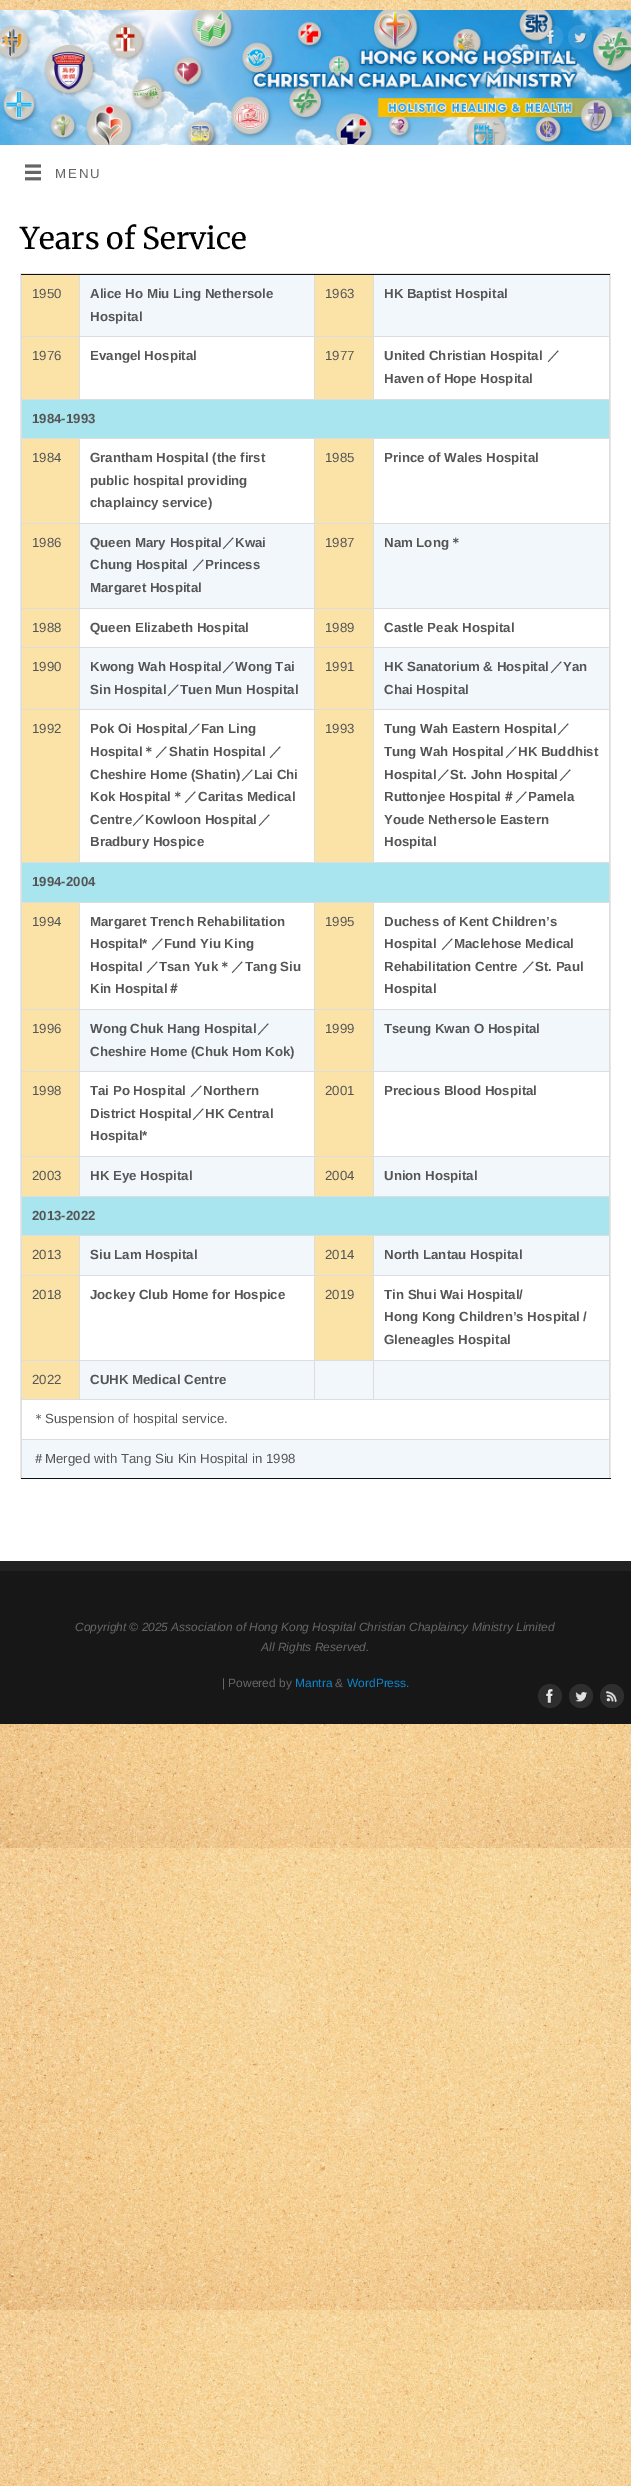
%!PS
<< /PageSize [631 2486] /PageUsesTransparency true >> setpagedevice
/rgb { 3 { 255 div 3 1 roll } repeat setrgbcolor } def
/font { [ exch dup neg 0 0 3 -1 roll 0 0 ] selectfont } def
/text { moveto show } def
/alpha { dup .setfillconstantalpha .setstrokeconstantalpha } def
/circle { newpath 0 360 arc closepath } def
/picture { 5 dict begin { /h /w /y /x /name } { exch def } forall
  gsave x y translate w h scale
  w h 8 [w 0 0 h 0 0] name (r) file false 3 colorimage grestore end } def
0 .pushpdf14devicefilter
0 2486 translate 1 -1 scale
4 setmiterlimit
255 255 255 rgb
0 0 631 2486 rectfill
(img_01.rgb) 0 0 631 2486 picture
(img_02.rgb) 0 10 631 135 picture
0.1 alpha
551 37 12 circle fill
1 alpha
(img_03.rgb) 546 30 8 15 picture
0.1 alpha
580 37 12 circle fill
1 alpha
(img_04.rgb) 574 33 13 11 picture
0.1 alpha
609 37 12 circle fill
1 alpha
(img_05.rgb) 602 32 13 13 picture
0 145 631 1416 rectfill
(img_06.rgb) 25 164 16 17 picture
231 231 231 rgb
20 273 591 1 rectfill
610 273 1 1206 rectfill
17 17 17 rgb
20 1478 591 1 rectfill
231 231 231 rgb
20 273 1 1206 rectfill
17 17 17 rgb
21 274 589 1 rectfill
251 226 167 rgb
22 275 57 61 rectfill
221 221 221 rgb
79 275 1 61 rectfill
21 275 1 61 rectfill
242 247 252 rgb
80 275 234 61 rectfill
221 221 221 rgb
314 275 1 61 rectfill
251 226 167 rgb
315 275 58 61 rectfill
221 221 221 rgb
373 275 1 61 rectfill
242 247 252 rgb
374 275 235 61 rectfill
221 221 221 rgb
609 275 1 61 rectfill
251 226 167 rgb
22 337 57 62 rectfill
221 221 221 rgb
21 336 589 1 rectfill
79 336 1 63 rectfill
21 336 1 63 rectfill
314 336 1 63 rectfill
251 226 167 rgb
315 337 58 62 rectfill
221 221 221 rgb
373 336 1 63 rectfill
609 336 1 63 rectfill
168 229 238 rgb
22 400 587 38 rectfill
221 221 221 rgb
21 399 589 1 rectfill
609 399 1 39 rectfill
21 399 1 39 rectfill
251 226 167 rgb
22 439 57 84 rectfill
221 221 221 rgb
21 438 589 1 rectfill
79 438 1 85 rectfill
21 438 1 85 rectfill
314 438 1 85 rectfill
251 226 167 rgb
315 439 58 84 rectfill
221 221 221 rgb
373 438 1 85 rectfill
609 438 1 85 rectfill
251 226 167 rgb
22 524 57 84 rectfill
221 221 221 rgb
21 523 589 1 rectfill
79 523 1 85 rectfill
21 523 1 85 rectfill
242 247 252 rgb
80 524 234 84 rectfill
221 221 221 rgb
314 523 1 85 rectfill
251 226 167 rgb
315 524 58 84 rectfill
221 221 221 rgb
373 523 1 85 rectfill
242 247 252 rgb
374 524 235 84 rectfill
221 221 221 rgb
609 523 1 85 rectfill
251 226 167 rgb
22 609 57 38 rectfill
221 221 221 rgb
21 608 589 1 rectfill
79 608 1 39 rectfill
21 608 1 39 rectfill
314 608 1 39 rectfill
251 226 167 rgb
315 609 58 38 rectfill
221 221 221 rgb
373 608 1 39 rectfill
609 608 1 39 rectfill
251 226 167 rgb
22 648 57 61 rectfill
221 221 221 rgb
21 647 589 1 rectfill
79 647 1 62 rectfill
21 647 1 62 rectfill
242 247 252 rgb
80 648 234 61 rectfill
221 221 221 rgb
314 647 1 62 rectfill
251 226 167 rgb
315 648 58 61 rectfill
221 221 221 rgb
373 647 1 62 rectfill
242 247 252 rgb
374 648 235 61 rectfill
221 221 221 rgb
609 647 1 62 rectfill
251 226 167 rgb
22 710 57 152 rectfill
221 221 221 rgb
21 709 589 1 rectfill
79 709 1 153 rectfill
21 709 1 153 rectfill
314 709 1 153 rectfill
251 226 167 rgb
315 710 58 152 rectfill
221 221 221 rgb
373 709 1 153 rectfill
609 709 1 153 rectfill
168 229 238 rgb
22 863 587 39 rectfill
221 221 221 rgb
21 862 589 1 rectfill
609 862 1 40 rectfill
21 862 1 40 rectfill
251 226 167 rgb
22 903 57 106 rectfill
221 221 221 rgb
21 902 589 1 rectfill
79 902 1 107 rectfill
21 902 1 107 rectfill
314 902 1 107 rectfill
251 226 167 rgb
315 903 58 106 rectfill
221 221 221 rgb
373 902 1 107 rectfill
609 902 1 107 rectfill
251 226 167 rgb
22 1010 57 61 rectfill
221 221 221 rgb
21 1009 589 1 rectfill
79 1009 1 62 rectfill
21 1009 1 62 rectfill
242 247 252 rgb
80 1010 234 61 rectfill
221 221 221 rgb
314 1009 1 62 rectfill
251 226 167 rgb
315 1010 58 61 rectfill
221 221 221 rgb
373 1009 1 62 rectfill
242 247 252 rgb
374 1010 235 61 rectfill
221 221 221 rgb
609 1009 1 62 rectfill
251 226 167 rgb
22 1072 57 84 rectfill
221 221 221 rgb
21 1071 589 1 rectfill
79 1071 1 85 rectfill
21 1071 1 85 rectfill
314 1071 1 85 rectfill
251 226 167 rgb
315 1072 58 84 rectfill
221 221 221 rgb
373 1071 1 85 rectfill
609 1071 1 85 rectfill
251 226 167 rgb
22 1157 57 39 rectfill
221 221 221 rgb
21 1156 589 1 rectfill
79 1156 1 40 rectfill
21 1156 1 40 rectfill
242 247 252 rgb
80 1157 234 39 rectfill
221 221 221 rgb
314 1156 1 40 rectfill
251 226 167 rgb
315 1157 58 39 rectfill
221 221 221 rgb
373 1156 1 40 rectfill
242 247 252 rgb
374 1157 235 39 rectfill
221 221 221 rgb
609 1156 1 40 rectfill
168 229 238 rgb
22 1197 587 38 rectfill
221 221 221 rgb
21 1196 589 1 rectfill
609 1196 1 39 rectfill
21 1196 1 39 rectfill
251 226 167 rgb
22 1236 57 39 rectfill
221 221 221 rgb
21 1235 589 1 rectfill
79 1235 1 40 rectfill
21 1235 1 40 rectfill
242 247 252 rgb
80 1236 234 39 rectfill
221 221 221 rgb
314 1235 1 40 rectfill
251 226 167 rgb
315 1236 58 39 rectfill
221 221 221 rgb
373 1235 1 40 rectfill
242 247 252 rgb
374 1236 235 39 rectfill
221 221 221 rgb
609 1235 1 40 rectfill
251 226 167 rgb
22 1276 57 84 rectfill
221 221 221 rgb
21 1275 589 1 rectfill
79 1275 1 85 rectfill
21 1275 1 85 rectfill
314 1275 1 85 rectfill
251 226 167 rgb
315 1276 58 84 rectfill
221 221 221 rgb
373 1275 1 85 rectfill
609 1275 1 85 rectfill
251 226 167 rgb
22 1361 57 38 rectfill
221 221 221 rgb
21 1360 589 1 rectfill
79 1360 1 39 rectfill
21 1360 1 39 rectfill
242 247 252 rgb
80 1361 234 38 rectfill
221 221 221 rgb
314 1360 1 39 rectfill
242 247 252 rgb
315 1361 58 38 rectfill
221 221 221 rgb
373 1360 1 39 rectfill
242 247 252 rgb
374 1361 235 38 rectfill
221 221 221 rgb
609 1360 1 39 rectfill
21 1399 589 1 rectfill
609 1399 1 40 rectfill
21 1399 1 40 rectfill
242 247 252 rgb
22 1440 587 38 rectfill
221 221 221 rgb
21 1439 589 1 rectfill
609 1439 1 39 rectfill
21 1439 1 39 rectfill
34 34 34 rgb
0 1561 631 10 rectfill
23 23 23 rgb
0 1571 631 153 rectfill
46 46 46 rgb
550 1696 12 circle fill
(img_07.rgb) 546 1689 7 15 picture
581 1696 12 circle fill
(img_08.rgb) 575 1692 13 10 picture
612 1696 12 circle fill
(img_09.rgb) 605 1691 12 12 picture
/LiberationSans-Regular 13.25 font
102 102 102 rgb
55 178 moveto 2 0 (MENU) ashow
/Merriweather-Regular 30 font
0 0 0 rgb
(Years of Service) 20 249 text
/LiberationSans-Regular 13.25 font
85 85 85 rgb
(1950) 32 298 text
/LiberationSans-Bold 13.25 font
(Alice Ho Miu Ling Nethersole) 90 298 text
(Hospital) 90 321 text
/LiberationSans-Regular 13.25 font
(1963) 325 298 text
/LiberationSans-Bold 13.25 font
(HK Baptist Hospital) 384 298 text
/LiberationSans-Regular 13.25 font
(1976) 32 360 text
/LiberationSans-Bold 13.25 font
(Evangel Hospital) 90 360 text
/LiberationSans-Regular 13.25 font
(1977) 325 360 text
/LiberationSans-Bold 13.25 font
(United Christian Hospital) 384 360 text
/WenQuanYiZenHei-Bold 13.25 font
(／) 547 360 text
/LiberationSans-Bold 13.25 font
(Haven of Hope Hospital) 384 383 text
(1984-1993) 32 423 text
/LiberationSans-Regular 13.25 font
(1984) 32 462 text
/LiberationSans-Bold 13.25 font
(Grantham Hospital \(the first) 90 462 text
(public hospital providing) 90 485 text
(chaplaincy service\)) 90 507 text
/LiberationSans-Regular 13.25 font
(1985) 325 462 text
/LiberationSans-Bold 13.25 font
(Prince of Wales Hospital) 384 462 text
/LiberationSans-Regular 13.25 font
(1986) 32 547 text
/LiberationSans-Bold 13.25 font
(Queen Mary Hospital) 90 547 text
/WenQuanYiZenHei-Bold 13.25 font
(／) 222 547 text
/LiberationSans-Bold 13.25 font
(Kwai) 235 547 text
(Chung Hospital) 90 569 text
/WenQuanYiZenHei-Bold 13.25 font
(／) 192 569 text
/LiberationSans-Bold 13.25 font
(Princess) 205 569 text
(Margaret Hospital) 90 592 text
/LiberationSans-Regular 13.25 font
(1987) 325 547 text
/LiberationSans-Bold 13.25 font
(Nam Long) 384 547 text
/WenQuanYiZenHei-Bold 13.25 font
(＊) 449 547 text
/LiberationSans-Regular 13.25 font
(1988) 32 632 text
/LiberationSans-Bold 13.25 font
(Queen Elizabeth Hospital) 90 632 text
/LiberationSans-Regular 13.25 font
(1989) 325 632 text
/LiberationSans-Bold 13.25 font
(Castle Peak Hospital) 384 632 text
/LiberationSans-Regular 13.25 font
(1990) 32 671 text
/LiberationSans-Bold 13.25 font
(Kwong Wah Hospital) 90 671 text
/WenQuanYiZenHei-Bold 13.25 font
(／) 222 671 text
/LiberationSans-Bold 13.25 font
(Wong Tai) 235 671 text
(Sin Hospital) 90 694 text
/WenQuanYiZenHei-Bold 13.25 font
(／) 167 694 text
/LiberationSans-Bold 13.25 font
(Tuen Mun Hospital) 180 694 text
/LiberationSans-Regular 13.25 font
(1991) 325 671 text
/LiberationSans-Bold 13.25 font
(HK Sanatorium & Hospital) 384 671 text
/WenQuanYiZenHei-Bold 13.25 font
(／) 550 671 text
/LiberationSans-Bold 13.25 font
(Yan) 563 671 text
(Chai Hospital) 384 694 text
/LiberationSans-Regular 13.25 font
(1992) 32 733 text
/LiberationSans-Bold 13.25 font
(Pok Oi Hospital) 90 733 text
/WenQuanYiZenHei-Bold 13.25 font
(／) 188 733 text
/LiberationSans-Bold 13.25 font
(Fan Ling) 201 733 text
(Hospital) 90 756 text
/WenQuanYiZenHei-Bold 13.25 font
(＊／) 142 756 text
/LiberationSans-Bold 13.25 font
(Shatin Hospital) 169 756 text
/WenQuanYiZenHei-Bold 13.25 font
(／) 269 756 text
/LiberationSans-Bold 13.25 font
(Cheshire Home \(Shatin\)) 90 779 text
/WenQuanYiZenHei-Bold 13.25 font
(／) 241 779 text
/LiberationSans-Bold 13.25 font
(Lai Chi) 254 779 text
(Kok Hospital) 90 801 text
/WenQuanYiZenHei-Bold 13.25 font
(＊／) 171 801 text
/LiberationSans-Bold 13.25 font
(Caritas Medical) 198 801 text
(Centre) 90 824 text
/WenQuanYiZenHei-Bold 13.25 font
(／) 132 824 text
/LiberationSans-Bold 13.25 font
(Kowloon Hospital) 145 824 text
/WenQuanYiZenHei-Bold 13.25 font
(／) 258 824 text
/LiberationSans-Bold 13.25 font
(Bradbury Hospice) 90 846 text
/LiberationSans-Regular 13.25 font
(1993) 325 733 text
/LiberationSans-Bold 13.25 font
(Tung Wah Eastern Hospital) 384 733 text
/WenQuanYiZenHei-Bold 13.25 font
(／) 557 733 text
/LiberationSans-Bold 13.25 font
(Tung Wah Hospital) 384 756 text
/WenQuanYiZenHei-Bold 13.25 font
(／) 505 756 text
/LiberationSans-Bold 13.25 font
(HK Buddhist) 518 756 text
(Hospital) 384 779 text
/WenQuanYiZenHei-Bold 13.25 font
(／) 437 779 text
/LiberationSans-Bold 13.25 font
(St. John Hospital) 450 779 text
/WenQuanYiZenHei-Bold 13.25 font
(／) 559 779 text
/LiberationSans-Bold 13.25 font
(Ruttonjee Hospital) 384 801 text
/WenQuanYiZenHei-Bold 13.25 font
(＃／) 502 801 text
/LiberationSans-Bold 13.25 font
(Pamela) 528 801 text
(Youde Nethersole Eastern) 384 824 text
(Hospital) 384 846 text
(1994-2004) 32 886 text
/LiberationSans-Regular 13.25 font
(1994) 32 926 text
/LiberationSans-Bold 13.25 font
(Margaret Trench Rehabilitation) 90 926 text
(Hospital*) 90 948 text
/WenQuanYiZenHei-Bold 13.25 font
(／) 151 948 text
/LiberationSans-Bold 13.25 font
(Fund Yiu King) 164 948 text
(Hospital) 90 971 text
/WenQuanYiZenHei-Bold 13.25 font
(／) 146 971 text
/LiberationSans-Bold 13.25 font
(Tsan Yuk) 159 971 text
/WenQuanYiZenHei-Bold 13.25 font
(＊／) 218 971 text
/LiberationSans-Bold 13.25 font
(Tang Siu) 245 971 text
(Kin Hospital) 90 993 text
/WenQuanYiZenHei-Bold 13.25 font
(＃) 167 993 text
/LiberationSans-Regular 13.25 font
(1995) 325 926 text
/LiberationSans-Bold 13.25 font
(Duchess of Kent Children’s) 384 926 text
(Hospital) 384 948 text
/WenQuanYiZenHei-Bold 13.25 font
(／) 441 948 text
/LiberationSans-Bold 13.25 font
(Maclehose Medical) 454 948 text
(Rehabilitation Centre) 384 971 text
/WenQuanYiZenHei-Bold 13.25 font
(／) 522 971 text
/LiberationSans-Bold 13.25 font
(St. Paul) 535 971 text
(Hospital) 384 993 text
/LiberationSans-Regular 13.25 font
(1996) 32 1033 text
/LiberationSans-Bold 13.25 font
(Wong Chuk Hang Hospital) 90 1033 text
/WenQuanYiZenHei-Bold 13.25 font
(／) 257 1033 text
/LiberationSans-Bold 13.25 font
(Cheshire Home \(Chuk Hom Kok\)) 90 1056 text
/LiberationSans-Regular 13.25 font
(1999) 325 1033 text
/LiberationSans-Bold 13.25 font
(Tseung Kwan O Hospital) 384 1033 text
/LiberationSans-Regular 13.25 font
(1998) 32 1095 text
/LiberationSans-Bold 13.25 font
(Tai Po Hospital) 90 1095 text
/WenQuanYiZenHei-Bold 13.25 font
(／) 190 1095 text
/LiberationSans-Bold 13.25 font
(Northern) 203 1095 text
(District Hospital) 90 1118 text
/WenQuanYiZenHei-Bold 13.25 font
(／) 192 1118 text
/LiberationSans-Bold 13.25 font
(HK Central) 205 1118 text
(Hospital*) 90 1140 text
/LiberationSans-Regular 13.25 font
(2001) 325 1095 text
/LiberationSans-Bold 13.25 font
(Precious Blood Hospital) 384 1095 text
/LiberationSans-Regular 13.25 font
(2003) 32 1180 text
/LiberationSans-Bold 13.25 font
(HK Eye Hospital) 90 1180 text
/LiberationSans-Regular 13.25 font
(2004) 325 1180 text
/LiberationSans-Bold 13.25 font
(Union Hospital) 384 1180 text
(2013-2022) 32 1220 text
/LiberationSans-Regular 13.25 font
(2013) 32 1259 text
/LiberationSans-Bold 13.25 font
(Siu Lam Hospital) 90 1259 text
/LiberationSans-Regular 13.25 font
(2014) 325 1259 text
/LiberationSans-Bold 13.25 font
(North Lantau Hospital) 384 1259 text
/LiberationSans-Regular 13.25 font
(2018) 32 1299 text
/LiberationSans-Bold 13.25 font
(Jockey Club Home for Hospice) 90 1299 text
/LiberationSans-Regular 13.25 font
(2019) 325 1299 text
/LiberationSans-Bold 13.25 font
(Tin Shui Wai Hospital/) 384 1299 text
(Hong Kong Children’s Hospital /) 384 1321 text
(Gleneagles Hospital) 384 1344 text
/LiberationSans-Regular 13.25 font
(2022) 32 1384 text
/LiberationSans-Bold 13.25 font
(CUHK Medical Centre) 90 1384 text
/WenQuanYiZenHei-Medium 13.25 font
(＊) 32 1423 text
/LiberationSans-Regular 13.25 font
(Suspension of hospital service.) 45 1423 text
/WenQuanYiZenHei-Medium 13.25 font
(＃) 32 1463 text
/LiberationSans-Regular 13.25 font
(Merged with Tang Siu Kin Hospital in 1998) 45 1463 text
/LiberationSans-Italic 11.95 font
102 102 102 rgb
(Copyright © 2025 Association of Hong Kong Hospital Christian Chaplaincy Ministry Limited) 75 1631 text
(All Rights Reserved.) 261 1651 text
/LiberationSans-Regular 11.95 font
(| Powered by) 222 1687 text
13 133 204 rgb
(Mantra) 295 1687 text
102 102 102 rgb
(&) 335 1687 text
13 133 204 rgb
(WordPress.) 347 1687 text
.poppdf14devicefilter showpage
